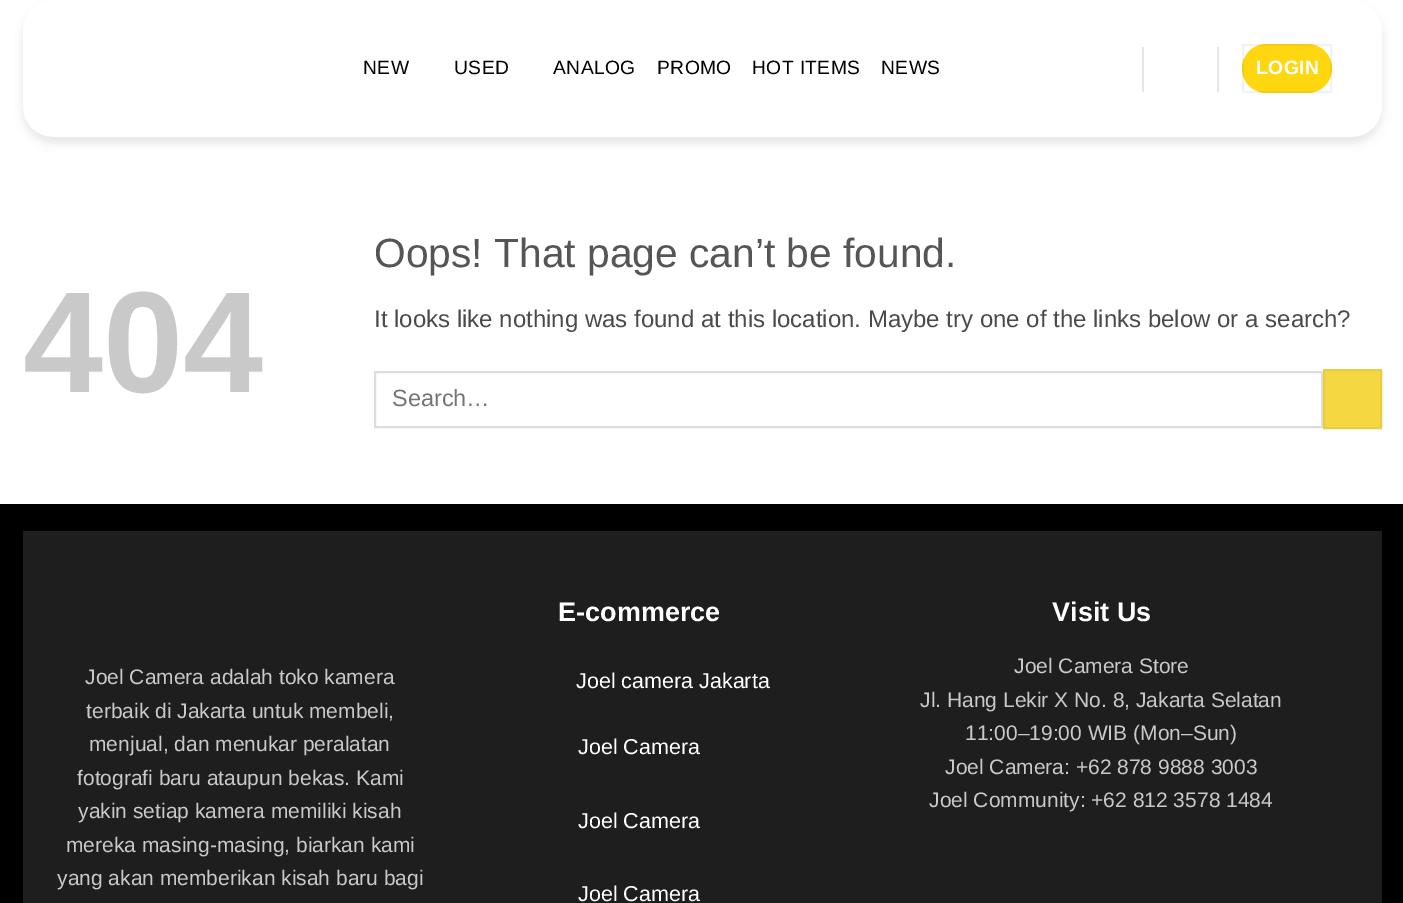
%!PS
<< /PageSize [1403 903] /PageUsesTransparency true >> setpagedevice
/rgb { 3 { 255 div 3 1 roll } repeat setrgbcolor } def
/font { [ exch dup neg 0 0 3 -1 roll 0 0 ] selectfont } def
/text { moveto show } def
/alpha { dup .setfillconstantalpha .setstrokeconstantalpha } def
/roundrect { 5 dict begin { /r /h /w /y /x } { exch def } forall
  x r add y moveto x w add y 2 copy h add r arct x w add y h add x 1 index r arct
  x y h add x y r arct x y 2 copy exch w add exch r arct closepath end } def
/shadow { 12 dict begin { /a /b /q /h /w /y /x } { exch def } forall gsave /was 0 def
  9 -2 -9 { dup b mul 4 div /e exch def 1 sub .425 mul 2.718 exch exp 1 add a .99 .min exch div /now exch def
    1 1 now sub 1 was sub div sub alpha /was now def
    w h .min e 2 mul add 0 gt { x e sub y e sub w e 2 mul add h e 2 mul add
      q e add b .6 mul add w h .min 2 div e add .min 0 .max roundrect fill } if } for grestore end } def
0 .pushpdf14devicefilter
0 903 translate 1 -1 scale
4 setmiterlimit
255 255 255 rgb
0 0 1403 903 rectfill
gsave
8 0 moveto 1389 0 rlineto 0 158 rlineto -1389 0 rlineto closepath 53 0 moveto 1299 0 rlineto 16.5 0 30 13.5 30 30 rcurveto 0 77 rlineto 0 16.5 -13.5 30 -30 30 rcurveto -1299 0 rlineto -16.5 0 -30 -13.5 -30 -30 rcurveto 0 -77 rlineto 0 -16.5 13.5 -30 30 -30 rcurveto closepath eoclip newpath
0 0 0 rgb
23 6 1359 137 30 4.5 0.1 shadow
grestore
0.54 alpha
23 0 1359 137 30 roundrect fill
0.3 alpha
2 setlinewidth
24 1 1357 135 29 roundrect stroke
1 alpha
230 230 230 rgb
1142 47 2 45 rectfill
1217 47 2 45 rectfill
255 215 17 rgb
1242 44 90 49 24.5 roundrect fill
0.05 alpha
0 0 0 rgb
1243 45 88 47 rectstroke
1 alpha
221 221 221 rgb
375 372 947 55 rectstroke
245 215 66 rgb
1324 370 moveto 57 0 rlineto 0 58 rlineto -57 0 rlineto closepath gsave fill grestore
233 204 63 rgb
stroke
0 0 0 rgb
0 504 1403 399 rectfill
30 30 30 rgb
23 531 1359 372 rectfill
/LiberationSans-Regular 19.25 font
0 0 0 rgb
363 74 moveto 0.4 0 (NEW) ashow
454 74 moveto 0.4 0 (USED) ashow
553 74 moveto 0.4 0 (ANALOG) ashow
657 74 moveto 0.4 0 (PROMO) ashow
752 74 moveto 0.4 0 (HOT ITEMS) ashow
881 74 moveto 0.4 0 (NEWS) ashow
/LiberationSans-Bold 19.25 font
255 255 255 rgb
1256 74 moveto 0.5 0 (LOGIN) ashow
/LiberationSans-Bold 144 font
201 201 201 rgb
(404) 23 392 text
/LiberationSans-Regular 40.75 font
85 85 85 rgb
(Oops! That page can’t be found.) 374 267 text
/LiberationSans-Regular 24 font
74 74 74 rgb
(It looks like nothing was found at this location. Maybe try one of the links below or a search?) 374 327 text
/LiberationSans-Regular 23.5 font
117 117 117 rgb
(Search…) 392 406 text
/LiberationSans-Regular 21 font
201 201 201 rgb
(Joel Camera adalah toko kamera) 85 684 text
(terbaik di Jakarta untuk membeli,) 86 718 text
(menjual, dan menukar peralatan) 89 751 text
(fotografi baru ataupun bekas. Kami) 77 785 text
(yakin setiap kamera memiliki kisah) 78 818 text
(mereka masing-masing, biarkan kami) 66 852 text
(yang akan memberikan kisah baru bagi) 57 885 text
/LiberationSans-Bold 27 font
255 255 255 rgb
(E-commerce) 558 621 text
/LiberationSans-Regular 21.5 font
(Joel camera Jakarta) 576 688 text
(Joel Camera) 578 754 text
(Joel Camera) 578 828 text
(Joel Camera) 578 901 text
/LiberationSans-Bold 27 font
(Visit Us) 1052 621 text
/LiberationSans-Regular 21 font
201 201 201 rgb
(Joel Camera Store) 1014 673 text
(Jl. Hang Lekir X No. 8, Jakarta Selatan) 920 707 text
(11:00–19:00 WIB \(Mon–Sun\)) 965 740 text
(Joel Camera: +62 878 9888 3003) 945 774 text
(Joel Community: +62 812 3578 1484) 929 807 text
.poppdf14devicefilter showpage
